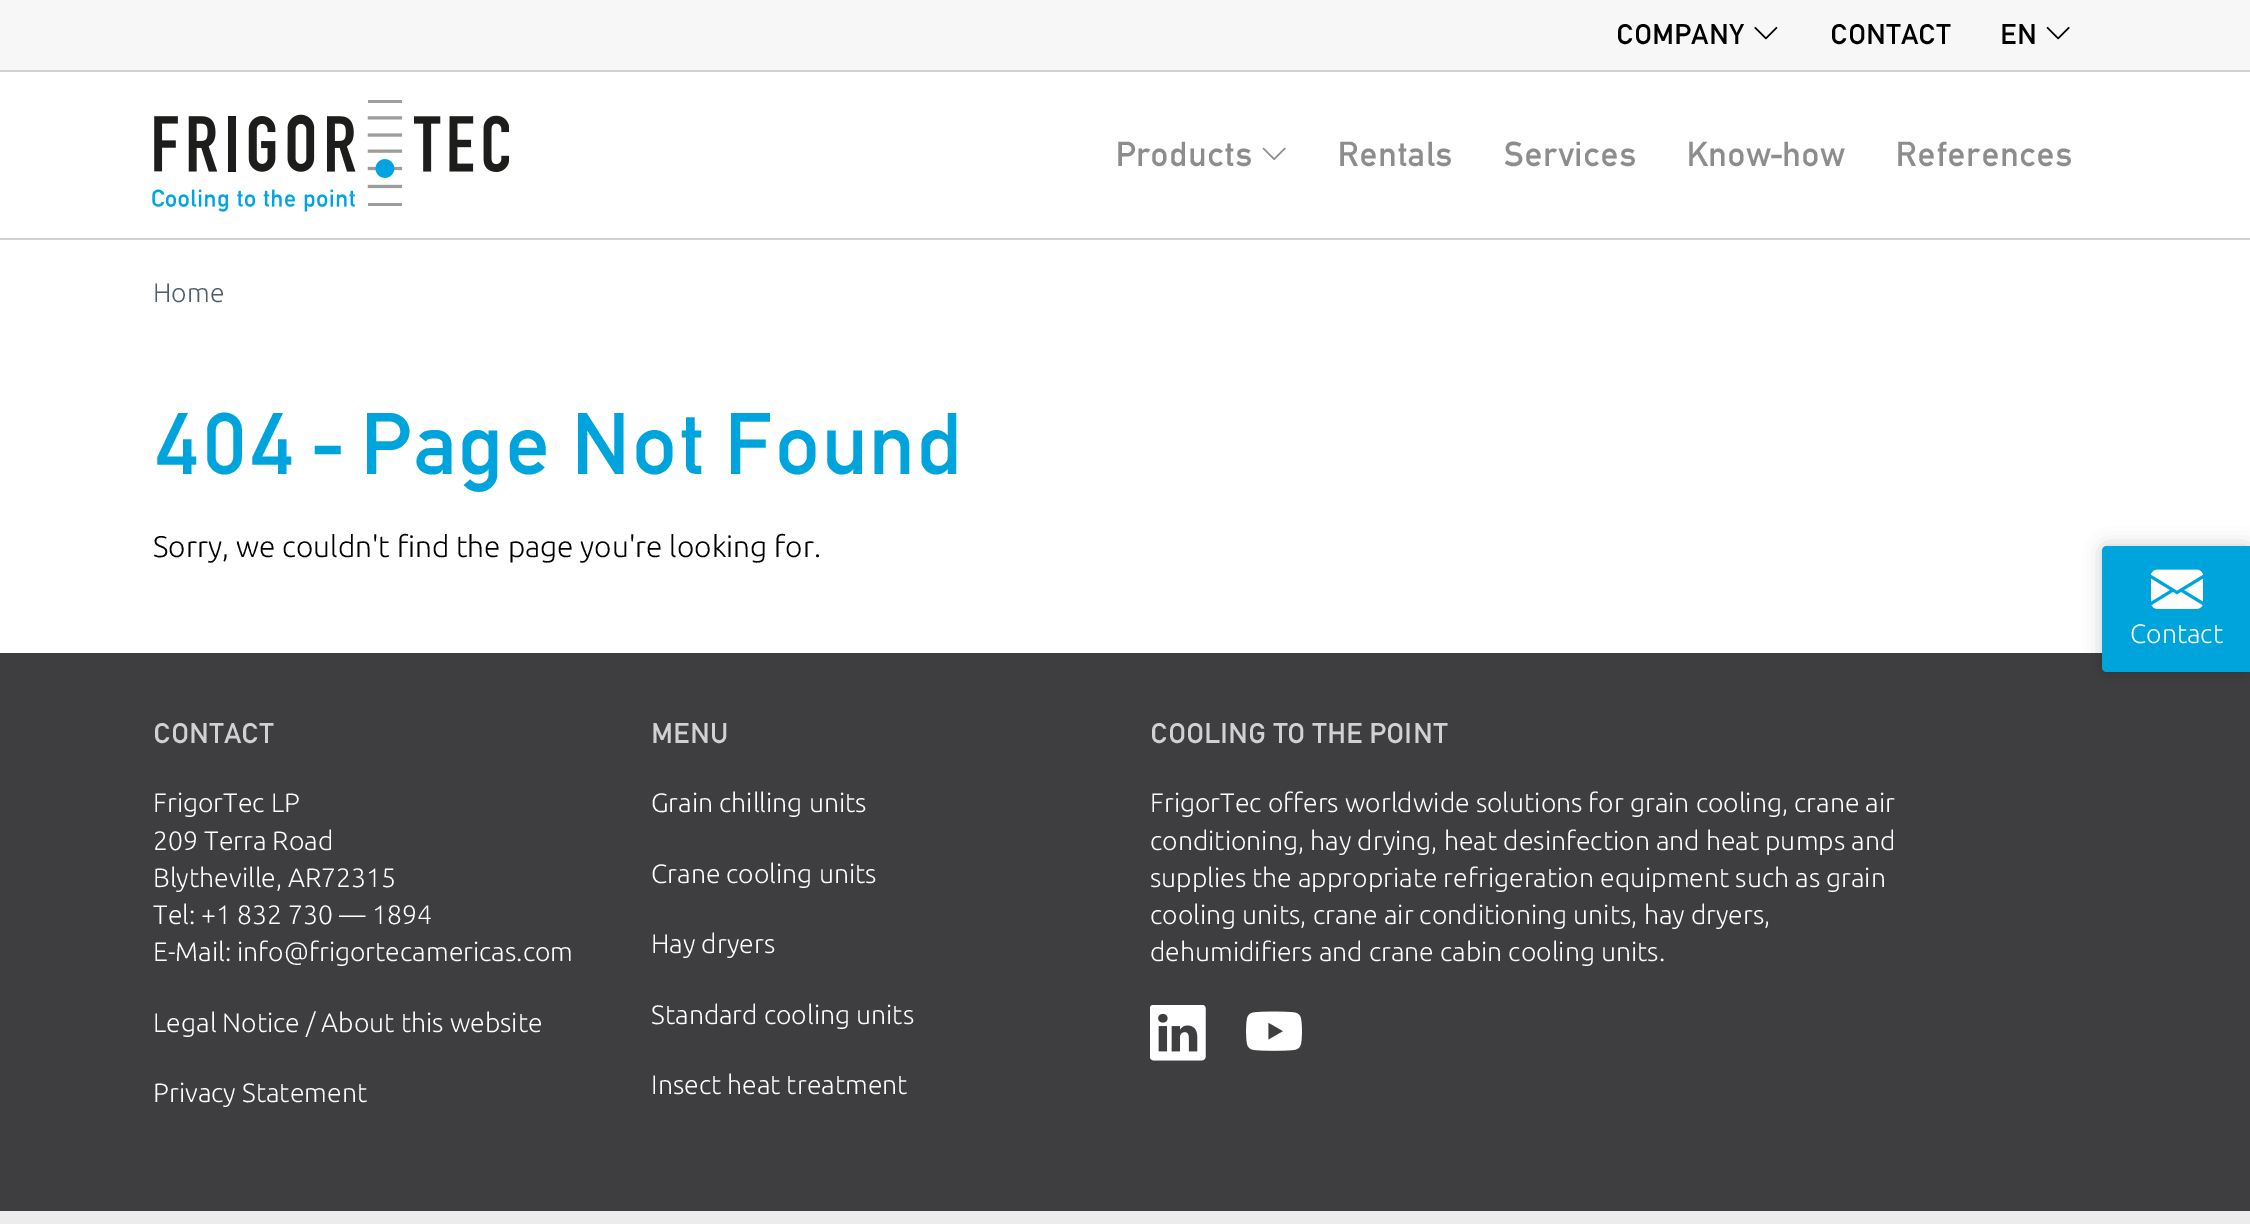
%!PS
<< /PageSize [2250 1224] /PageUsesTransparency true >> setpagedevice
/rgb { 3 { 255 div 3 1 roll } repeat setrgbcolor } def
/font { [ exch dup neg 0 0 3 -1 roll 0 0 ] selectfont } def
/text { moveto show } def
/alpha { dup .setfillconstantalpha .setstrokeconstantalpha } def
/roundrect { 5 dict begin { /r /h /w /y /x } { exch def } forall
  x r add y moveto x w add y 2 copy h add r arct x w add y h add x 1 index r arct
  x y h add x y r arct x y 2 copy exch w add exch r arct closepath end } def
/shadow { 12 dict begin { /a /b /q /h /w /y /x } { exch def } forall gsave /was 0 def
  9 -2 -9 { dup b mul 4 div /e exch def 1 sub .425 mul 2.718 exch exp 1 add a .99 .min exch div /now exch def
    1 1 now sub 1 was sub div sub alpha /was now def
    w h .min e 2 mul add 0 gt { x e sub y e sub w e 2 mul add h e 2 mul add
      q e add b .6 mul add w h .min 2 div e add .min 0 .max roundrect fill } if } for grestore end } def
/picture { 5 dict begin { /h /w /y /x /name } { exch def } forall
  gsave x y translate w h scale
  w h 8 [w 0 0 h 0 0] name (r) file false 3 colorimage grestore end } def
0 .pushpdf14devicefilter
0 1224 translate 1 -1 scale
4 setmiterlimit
236 236 236 rgb
0 0 2250 1224 rectfill
247 247 247 rgb
0 0 2250 70 rectfill
(img_01.rgb) 1754 27 24 13 picture
(img_02.rgb) 2046 27 24 13 picture
255 255 255 rgb
0 72 2250 166 rectfill
209 209 209 rgb
0 70 2250 2 rectfill
0 238 2250 2 rectfill
(img_03.rgb) 152 100 357 112 picture
(img_04.rgb) 1262 147 24 13 picture
255 255 255 rgb
0 240 2250 413 rectfill
62 61 64 rgb
0 653 2250 558 rectfill
0 0 0 rgb
2102 546 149 126 5 9 0.2 shadow
0 164 221 rgb
2107 546 moveto 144 0 rlineto 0 126 rlineto -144 0 rlineto -3 0 -5 -2 -5 -5 rcurveto 0 -116 rlineto 0 -3 2 -5 5 -5 rcurveto closepath fill
(img_05.rgb) 2151 569 52 40 picture
(img_06.rgb) 1150 1005 56 56 picture
(img_07.rgb) 1246 1011 56 40 picture
/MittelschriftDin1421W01-Regular 29.9 font
0 0 0 rgb
(COMPANY) 1616 44 text
(CONTACT) 1830 44 text
(EN) 2000 44 text
/MittelschriftDin1421W01-Regular 36.5 font
141 141 141 rgb
(Products) 1115 166 text
(Rentals) 1337 166 text
(Services) 1503 166 text
(Know-how) 1686 166 text
(References) 1895 166 text
/Ubuntu-Light 26.6 font
80 93 104 rgb
(Home) 153 302 text
/MittelschriftDin1421W01-Regular 91.5 font
0 164 221 rgb
(404 - Page Not Found) 153 474 text
/Ubuntu-Light 29.9 font
0 0 0 rgb
(Sorry, we couldn't find the page you're looking for.) 153 557 text
/Ubuntu-Light 26.6 font
255 255 255 rgb
(Contact) 2130 643 text
/MittelschriftDin1421W01-Regular 29.9 font
209 209 209 rgb
(CONTACT) 153 743 text
/Ubuntu-Light 26.6 font
255 255 255 rgb
(FrigorTec LP) 153 812 text
(209 Terra Road) 153 850 text
(Blytheville, AR72315) 153 887 text
(Tel: +1 832 730 — 1894) 153 924 text
(E-Mail: info@frigortecamericas.com) 153 961 text
(Legal Notice / About this website) 153 1032 text
(Privacy Statement) 153 1102 text
/MittelschriftDin1421W01-Regular 29.9 font
209 209 209 rgb
(MENU) 651 743 text
/Ubuntu-Light 26.6 font
255 255 255 rgb
(Grain chilling units) 651 812 text
(Crane cooling units) 651 883 text
(Hay dryers) 651 953 text
(Standard cooling units) 651 1024 text
(Insect heat treatment) 651 1094 text
/MittelschriftDin1421W01-Regular 29.9 font
209 209 209 rgb
(COOLING TO THE POINT) 1150 743 text
/Ubuntu-Light 26.6 font
255 255 255 rgb
(FrigorTec offers worldwide solutions for grain cooling, crane air) 1150 812 text
(conditioning, hay drying, heat desinfection and heat pumps and) 1150 850 text
(supplies the appropriate refrigeration equipment such as grain) 1150 887 text
(cooling units, crane air conditioning units, hay dryers,) 1150 924 text
(dehumidifiers and crane cabin cooling units.) 1150 961 text
.poppdf14devicefilter showpage
